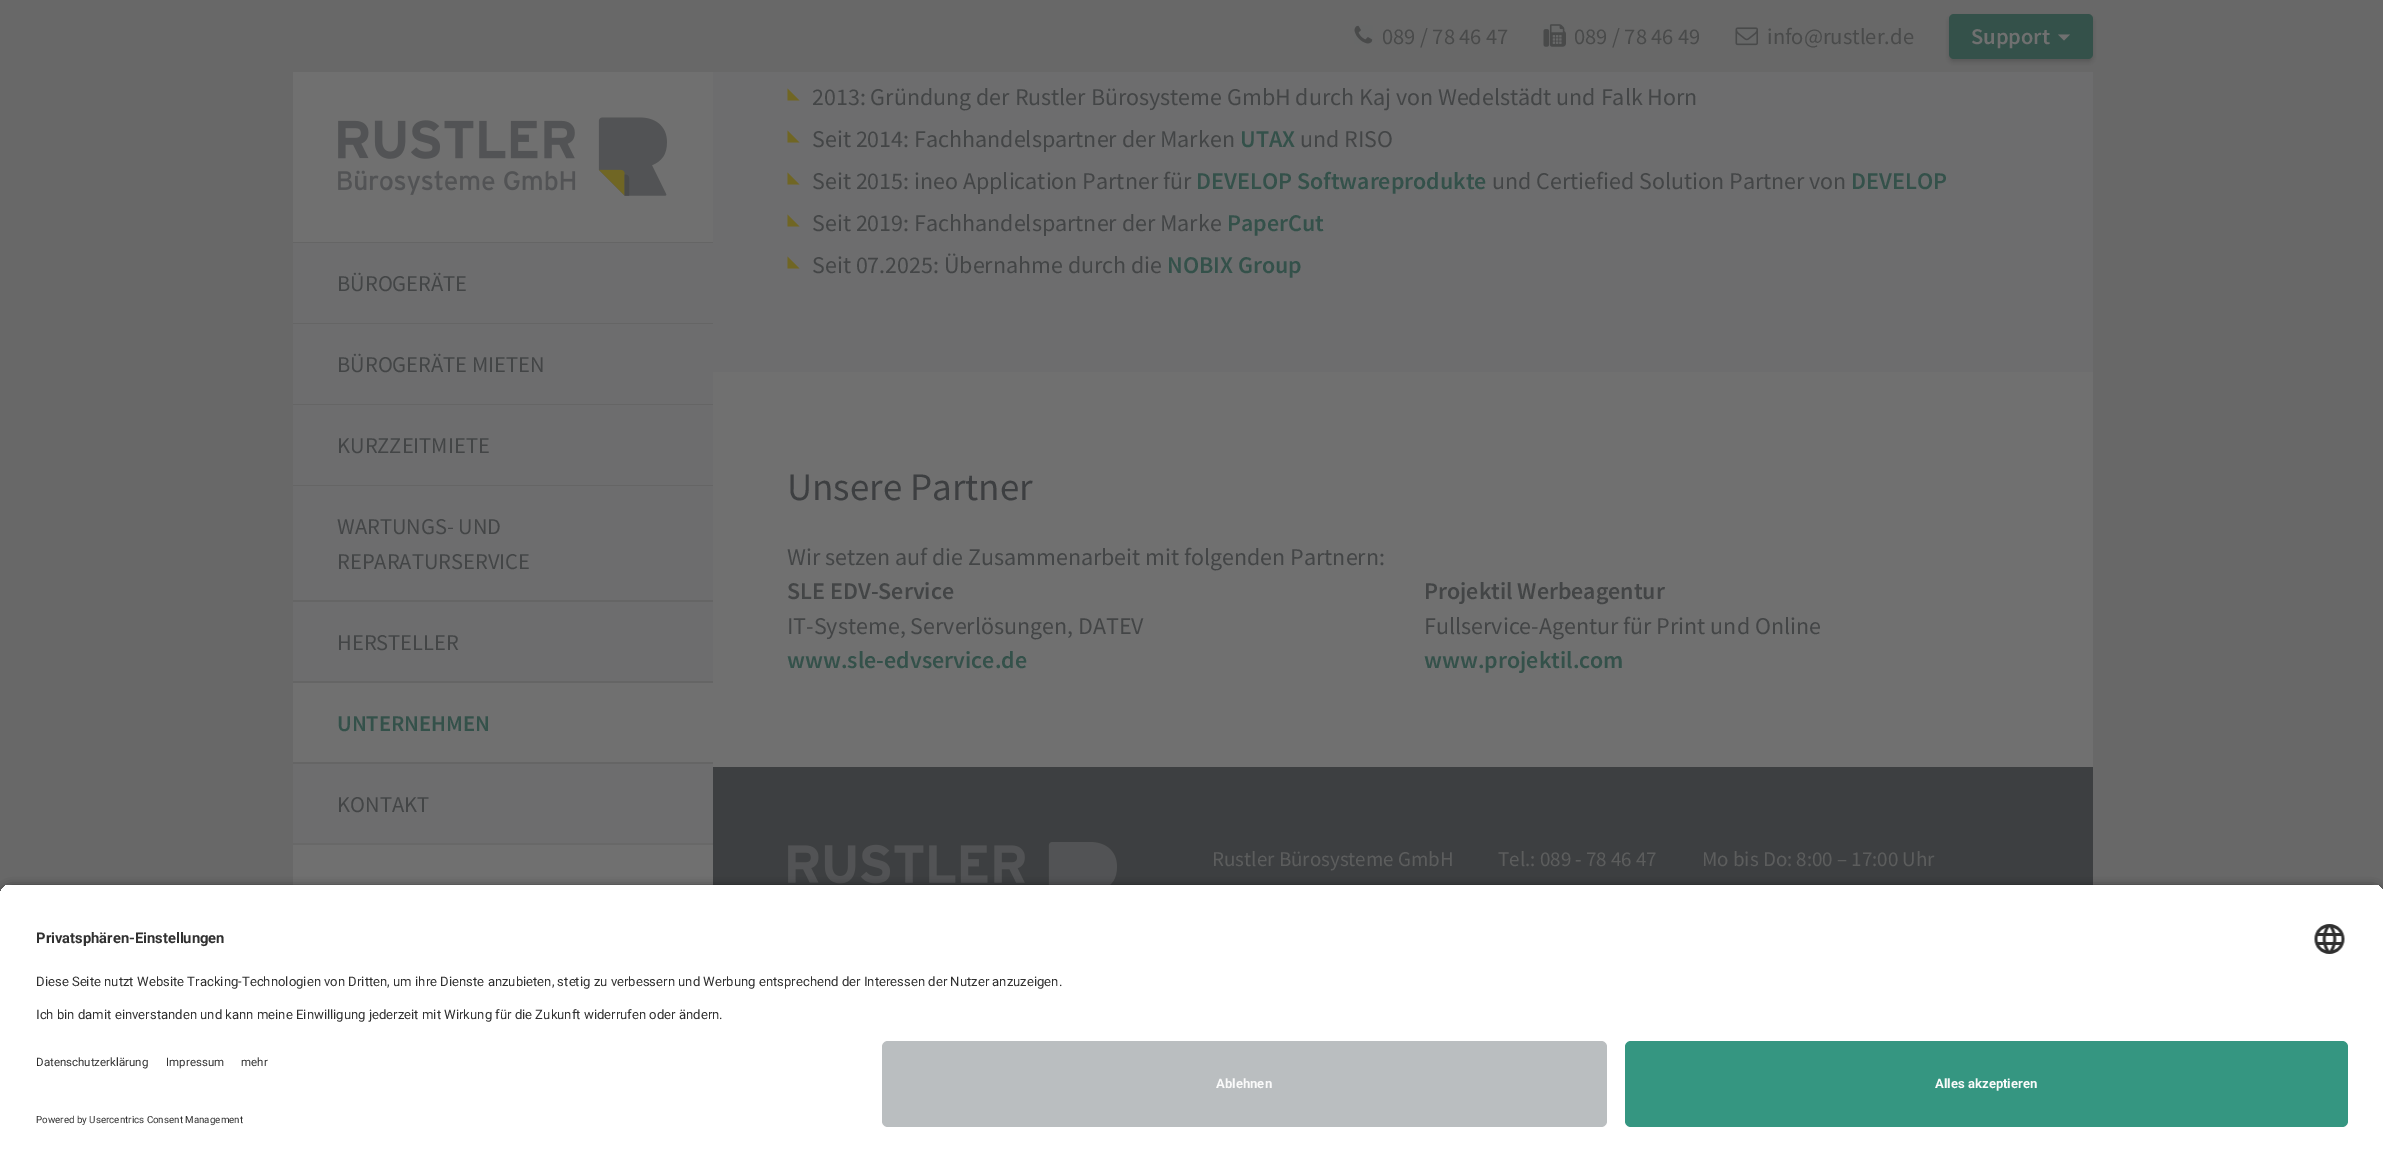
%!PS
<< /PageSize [2383 1162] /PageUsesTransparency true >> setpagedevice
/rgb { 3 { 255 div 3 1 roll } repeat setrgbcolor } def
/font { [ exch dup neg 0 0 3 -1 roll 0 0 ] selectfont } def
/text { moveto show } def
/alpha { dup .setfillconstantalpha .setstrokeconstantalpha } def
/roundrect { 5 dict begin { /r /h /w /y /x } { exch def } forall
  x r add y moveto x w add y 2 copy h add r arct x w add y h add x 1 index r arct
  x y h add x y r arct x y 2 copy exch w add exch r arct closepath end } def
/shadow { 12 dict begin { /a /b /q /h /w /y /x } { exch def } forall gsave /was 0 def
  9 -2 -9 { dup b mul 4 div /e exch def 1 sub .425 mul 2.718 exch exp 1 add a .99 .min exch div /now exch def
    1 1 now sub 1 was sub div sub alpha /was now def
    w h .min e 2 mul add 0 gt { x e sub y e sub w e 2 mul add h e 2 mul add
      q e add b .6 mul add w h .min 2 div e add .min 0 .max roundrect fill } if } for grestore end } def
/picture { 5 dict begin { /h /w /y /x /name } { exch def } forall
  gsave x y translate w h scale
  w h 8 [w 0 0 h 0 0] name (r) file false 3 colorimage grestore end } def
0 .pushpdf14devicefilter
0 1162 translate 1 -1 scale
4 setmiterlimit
104 104 104 rgb
0 0 2383 1162 rectfill
112 112 112 rgb
293 72 420 813 rectfill
(img_01.rgb) 338 117 329 79 picture
101 101 101 rgb
293 242 420 1 rectfill
109 109 110 rgb
293 243 420 80 rectfill
101 101 101 rgb
293 323 420 1 rectfill
109 109 110 rgb
293 324 420 80 rectfill
101 101 101 rgb
293 404 420 1 rectfill
109 109 110 rgb
293 405 420 80 rectfill
101 101 101 rgb
293 485 420 1 rectfill
109 109 110 rgb
293 486 420 114 rectfill
101 101 101 rgb
293 600 420 2 rectfill
109 109 110 rgb
293 602 420 79 rectfill
101 101 101 rgb
293 681 420 2 rectfill
293 762 420 2 rectfill
109 109 110 rgb
293 764 420 79 rectfill
104 104 104 rgb
293 843 420 2 rectfill
(img_02.rgb) 1354 25 19 19 picture
(img_03.rgb) 1543 24 23 23 picture
(img_04.rgb) 1735 27 23 19 picture
36 36 36 rgb
1949 17 144 45 5 2 0.2 shadow
52 81 74 rgb
1949 14 144 45 5 roundrect fill
112 112 112 rgb
2058 34.5 moveto 12 0 rlineto -6 6 rlineto closepath fill
713 372 1380 395 rectfill
109 109 110 rgb
713 72 1380 300 rectfill
112 102 36 rgb
787.5 100.5 moveto 0 -12 rlineto 12 12 rlineto closepath fill
787.5 142.5 moveto 0 -12 rlineto 12 12 rlineto closepath fill
787.5 184.5 moveto 0 -12 rlineto 12 12 rlineto closepath fill
787.5 226.5 moveto 0 -12 rlineto 12 12 rlineto closepath fill
787.5 268.5 moveto 0 -12 rlineto 12 12 rlineto closepath fill
61 63 65 rgb
713 767 1380 118 rectfill
(img_05.rgb) 788 842 329 43 picture
0 0 0 rgb
0 888 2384 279 12 5 0.8 shadow
gsave
12 884 moveto 2360 0 rlineto 6.5 0 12 5.5 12 12 rcurveto 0 133 rlineto -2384 0 rlineto 0 -133 rlineto 0 -6.5 5.5 -12 12 -12 rcurveto closepath clip newpath
255 255 255 rgb
0 885 2383 144 rectfill
grestore
(img_06.rgb) 2314 924 31 30 picture
255 255 255 rgb
0 1029 2383 133 rectfill
186 190 192 rgb
882 1041 725 86 6 roundrect fill
53 150 129 rgb
1625 1041 723 86 6 roundrect fill
/SourceSansPro-Regular 22.5 font
67 69 70 rgb
(BÜROGERÄTE) 337 291 text
(BÜROGERÄTE MIETEN) 337 372 text
(KURZZEITMIETE) 337 453 text
(WARTUNGS- UND) 337 534 text
(REPARATURSERVICE) 337 569 text
(HERSTELLER) 337 650 text
/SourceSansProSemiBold-SemiBold 22.5 font
52 81 74 rgb
(UNTERNEHMEN) 337 731 text
/SourceSansPro-Regular 22.5 font
67 69 70 rgb
(KONTAKT) 337 812 text
73 74 74 rgb
(089 / 78 46 47) 1382 44 text
(089 / 78 46 49) 1574 44 text
(info@rustler.de) 1767 44 text
/SourceSansProSemiBold-SemiBold 22.5 font
112 112 112 rgb
(Support) 1971 44 text
/SourceSansPro-Regular 24 font
67 69 70 rgb
(2013: Gründung der Rustler Bürosysteme GmbH durch Kaj von Wedelstädt und Falk Horn) 812 105 text
(Seit 2014: Fachhandelspartner der Marken) 812 147 text
/SourceSansProSemiBold-SemiBold 24 font
52 81 74 rgb
(UTAX) 1240 147 text
/SourceSansPro-Regular 24 font
67 69 70 rgb
(und RISO) 1300 147 text
(Seit 2015: ineo Application Partner für) 812 189 text
/SourceSansProSemiBold-SemiBold 24 font
52 81 74 rgb
(DEVELOP Softwareprodukte) 1196 189 text
/SourceSansPro-Regular 24 font
67 69 70 rgb
(und Certiefied Solution Partner von) 1492 189 text
/SourceSansProSemiBold-SemiBold 24 font
52 81 74 rgb
(DEVELOP) 1851 189 text
/SourceSansPro-Regular 24 font
67 69 70 rgb
(Seit 2019: Fachhandelspartner der Marke) 812 231 text
/SourceSansProSemiBold-SemiBold 24 font
52 81 74 rgb
(PaperCut) 1227 231 text
/SourceSansPro-Regular 24 font
67 69 70 rgb
(Seit 07.2025: Übernahme durch die) 812 273 text
/SourceSansProSemiBold-SemiBold 24 font
52 81 74 rgb
(NOBIX Group) 1167 273 text
/SourceSansPro-Regular 39 font
61 63 65 rgb
(Unsere Partner) 787 500 text
/SourceSansPro-Regular 24 font
67 69 70 rgb
(Wir setzen auf die Zusammenarbeit mit folgenden Partnern:) 787 565 text
/SourceSansProSemiBold-SemiBold 24 font
(SLE EDV-Service) 787 599 text
/SourceSansPro-Regular 24 font
(IT-Systeme, Serverlösungen, DATEV) 787 634 text
/SourceSansProSemiBold-SemiBold 24 font
52 81 74 rgb
(www.sle-edvservice.de) 787 668 text
67 69 70 rgb
(Projektil Werbeagentur) 1424 599 text
/SourceSansPro-Regular 24 font
(Fullservice-Agentur für Print und Online) 1424 634 text
/SourceSansProSemiBold-SemiBold 24 font
52 81 74 rgb
(www.projektil.com) 1424 668 text
/SourceSansPro-Regular 21 font
92 93 93 rgb
(Rustler Bürosysteme GmbH) 1212 866 text
(Tel.: 089 - 78 46 47) 1498 866 text
(Mo bis Do: 8:00 – 17:00 Uhr) 1702 866 text
/Roboto-Bold 14.75 font
48 48 48 rgb
(Privatsphären-Einstellungen) 36 943 text
/Roboto-Regular 13.12 font
(Diese Seite nutzt Website Tracking-Technologien von Dritten, um ihre Dienste anzubieten, stetig zu verbessern und Werbung entsprechend der Interessen der Nutzer anzuzeigen.) 36 986 text
(Ich bin damit einverstanden und kann meine Einwilligung jederzeit mit Wirkung für die Zukunft widerrufen oder ändern.) 36 1019 text
/Roboto-Regular 11.5 font
(Datenschutzerklärung) 36 1066 text
(Impressum) 166 1066 text
(mehr) 241 1066 text
/Roboto-Regular 9.8 font
(Powered by Usercentrics Consent Management) 36 1123 text
/Roboto-Bold 13.12 font
250 250 250 rgb
(Ablehnen) 1216 1088 text
(Alles akzeptieren) 1935 1088 text
.poppdf14devicefilter showpage
